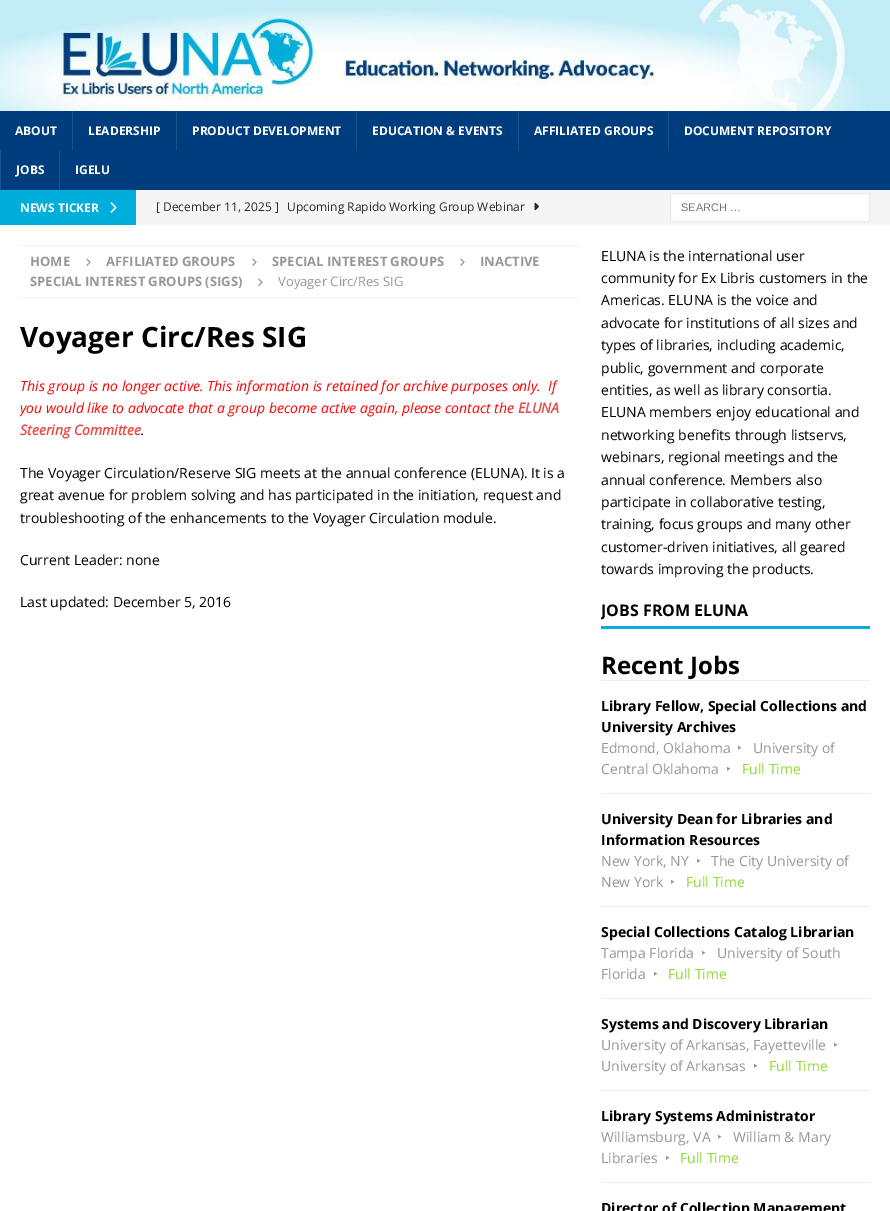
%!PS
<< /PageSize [890 1211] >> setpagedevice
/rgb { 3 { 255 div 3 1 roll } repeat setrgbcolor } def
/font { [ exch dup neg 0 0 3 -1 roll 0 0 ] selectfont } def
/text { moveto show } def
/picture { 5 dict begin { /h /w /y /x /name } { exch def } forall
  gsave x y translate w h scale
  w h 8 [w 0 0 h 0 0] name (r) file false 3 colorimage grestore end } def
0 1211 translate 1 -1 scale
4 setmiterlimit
0 61 126 rgb
0 0 890 1211 rectfill
(img_01.rgb) 0 0 890 111 picture
26 80 139 rgb
72 111 1 39 rectfill
176 111 1 39 rectfill
356 111 1 39 rectfill
518 111 1 39 rectfill
668 111 1 39 rectfill
0 150 1 40 rectfill
59 150 1 40 rectfill
245 245 245 rgb
136 190 754 35 rectfill
0 174 219 rgb
0 190 136 35 rectfill
(img_02.rgb) 110 202 7 11 picture
(img_03.rgb) 534 202 5 9 picture
255 255 255 rgb
670.5 193.5 moveto 199 0 rlineto 0 28 rlineto -199 0 rlineto closepath gsave fill grestore
235 235 235 rgb
stroke
255 255 255 rgb
0 225 890 986 rectfill
235 235 235 rgb
[1 1] 0 setdash
20 245.5 moveto 560 0 rlineto stroke
20 297.5 moveto 560 0 rlineto stroke
(img_04.rgb) 86 258 5 8 picture
(img_04.rgb) 252 258 5 8 picture
(img_04.rgb) 460 258 5 8 picture
(img_04.rgb) 258 278 5 8 picture
0 174 219 rgb
601 626 269 3 rectfill
238 238 238 rgb
601 680 269 1 rectfill
601 793 269 1 rectfill
601 906 269 1 rectfill
601 998 269 1 rectfill
601 1090 269 1 rectfill
601 1182 269 1 rectfill
/OpenSans-Bold 12 font
255 255 255 rgb
(ABOUT) 15 135 text
(LEADERSHIP) 88 135 text
(PRODUCT DEVELOPMENT) 192 135 text
(EDUCATION & EVENTS) 372 135 text
(AFFILIATED GROUPS) 534 135 text
(DOCUMENT REPOSITORY) 684 135 text
(JOBS) 16 174 text
(IGELU) 75 174 text
(NEWS TICKER) 20 212 text
/OpenSans-Regular 12 font
42 42 42 rgb
([ December 11, 2025 ]) 156 211 text
(Upcoming Rapido Working Group Webinar) 287 211 text
/LiberationSans-Regular 11 font
117 117 117 rgb
(SEARCH …) 681 211 text
/OpenSans-Bold 13 font
151 151 151 rgb
(HOME) 30 266 text
(AFFILIATED GROUPS) 106 266 text
(SPECIAL INTEREST GROUPS) 272 266 text
(INACTIVE) 480 266 text
(SPECIAL INTEREST GROUPS \(SIGS\)) 30 286 text
/OpenSans-Regular 13 font
(Voyager Circ/Res SIG) 278 286 text
/OpenSans-Bold 28 font
0 0 0 rgb
(Voyager Circ/Res SIG) 20 347 text
/OpenSans-Italic 14 font
255 0 0 rgb
(This group is no longer active. This information is retained for archive purposes only.  If) 20 391 text
gsave
20 245 560 389 rectclip
(you would like to advocate that a group become active again, please contact the) 20 413 text
grestore
/OpenSans-BoldItalic 14 font
230 73 70 rgb
(ELUNA) 518 413 text
(Steering Committee) 20 435 text
/OpenSans-Italic 14 font
0 0 0 rgb
(.) 141 435 text
/OpenSans-Regular 14 font
(The Voyager Circulation/Reserve SIG meets at the annual conference \(ELUNA\). It is a) 20 478 text
(great avenue for problem solving and has participated in the initiation, request and) 20 500 text
(troubleshooting of the enhancements to the Voyager Circulation module.) 20 523 text
(Current Leader: none) 20 565 text
(Last updated: December 5, 2016) 20 607 text
(ELUNA is the international user) 601 261 text
(community for Ex Libris customers in the) 601 283 text
(Americas. ELUNA is the voice and) 601 305 text
(advocate for institutions of all sizes and) 601 328 text
(types of libraries, including academic,) 601 350 text
(public, government and corporate) 601 373 text
(entities, as well as library consortia.) 601 395 text
(ELUNA members enjoy educational and) 601 417 text
(networking benefits through listservs,) 601 440 text
(webinars, regional meetings and the) 601 462 text
(annual conference. Members also) 601 485 text
(participate in collaborative testing,) 601 507 text
(training, focus groups and many other) 601 529 text
(customer-driven initiatives, all geared) 601 552 text
(towards improving the products.) 601 574 text
gsave
601 600 269 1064 rectclip
/OpenSans-Bold 16 font
(JOBS FROM ELUNA) 601 616 text
grestore
/OpenSans-Bold 24 font
(Recent Jobs) 601 674 text
/OpenSans-Bold 14 font
(Library Fellow, Special Collections and) 601 711 text
(University Archives) 601 732 text
/OpenSans-Regular 14 font
151 151 151 rgb
(Edmond, Oklahoma) 601 753 text
/NotoSans-Regular 14 font
(‣) 737 753 text
/OpenSans-Regular 14 font
(University of) 753 753 text
(Central Oklahoma) 601 774 text
/NotoSans-Regular 14 font
(‣) 726 774 text
/OpenSans-Regular 14 font
144 218 54 rgb
(Full Time) 742 774 text
/OpenSans-Bold 14 font
0 0 0 rgb
(University Dean for Libraries and) 601 824 text
(Information Resources) 601 845 text
/OpenSans-Regular 14 font
151 151 151 rgb
(New York, NY) 601 866 text
/NotoSans-Regular 14 font
(‣) 696 866 text
/OpenSans-Regular 14 font
(The City University of) 711 866 text
(New York) 601 887 text
/NotoSans-Regular 14 font
(‣) 670 887 text
/OpenSans-Regular 14 font
144 218 54 rgb
(Full Time) 686 887 text
/OpenSans-Bold 14 font
0 0 0 rgb
(Special Collections Catalog Librarian) 601 937 text
/OpenSans-Regular 14 font
151 151 151 rgb
(Tampa Florida) 601 958 text
/NotoSans-Regular 14 font
(‣) 701 958 text
/OpenSans-Regular 14 font
(University of South) 717 958 text
(Florida) 601 979 text
/NotoSans-Regular 14 font
(‣) 653 979 text
/OpenSans-Regular 14 font
144 218 54 rgb
(Full Time) 668 979 text
/OpenSans-Bold 14 font
0 0 0 rgb
(Systems and Discovery Librarian) 601 1029 text
/OpenSans-Regular 14 font
151 151 151 rgb
(University of Arkansas, Fayetteville) 601 1050 text
/NotoSans-Regular 14 font
(‣) 833 1050 text
/OpenSans-Regular 14 font
(University of Arkansas) 601 1071 text
/NotoSans-Regular 14 font
(‣) 753 1071 text
/OpenSans-Regular 14 font
144 218 54 rgb
(Full Time) 769 1071 text
/OpenSans-Bold 14 font
0 0 0 rgb
(Library Systems Administrator) 601 1121 text
/OpenSans-Regular 14 font
151 151 151 rgb
(Williamsburg, VA) 601 1142 text
/NotoSans-Regular 14 font
(‣) 717 1142 text
/OpenSans-Regular 14 font
(William & Mary) 733 1142 text
(Libraries) 601 1163 text
/NotoSans-Regular 14 font
(‣) 665 1163 text
/OpenSans-Regular 14 font
144 218 54 rgb
(Full Time) 680 1163 text
/OpenSans-Bold 14 font
0 0 0 rgb
(Director of Collection Management) 601 1213 text
showpage
